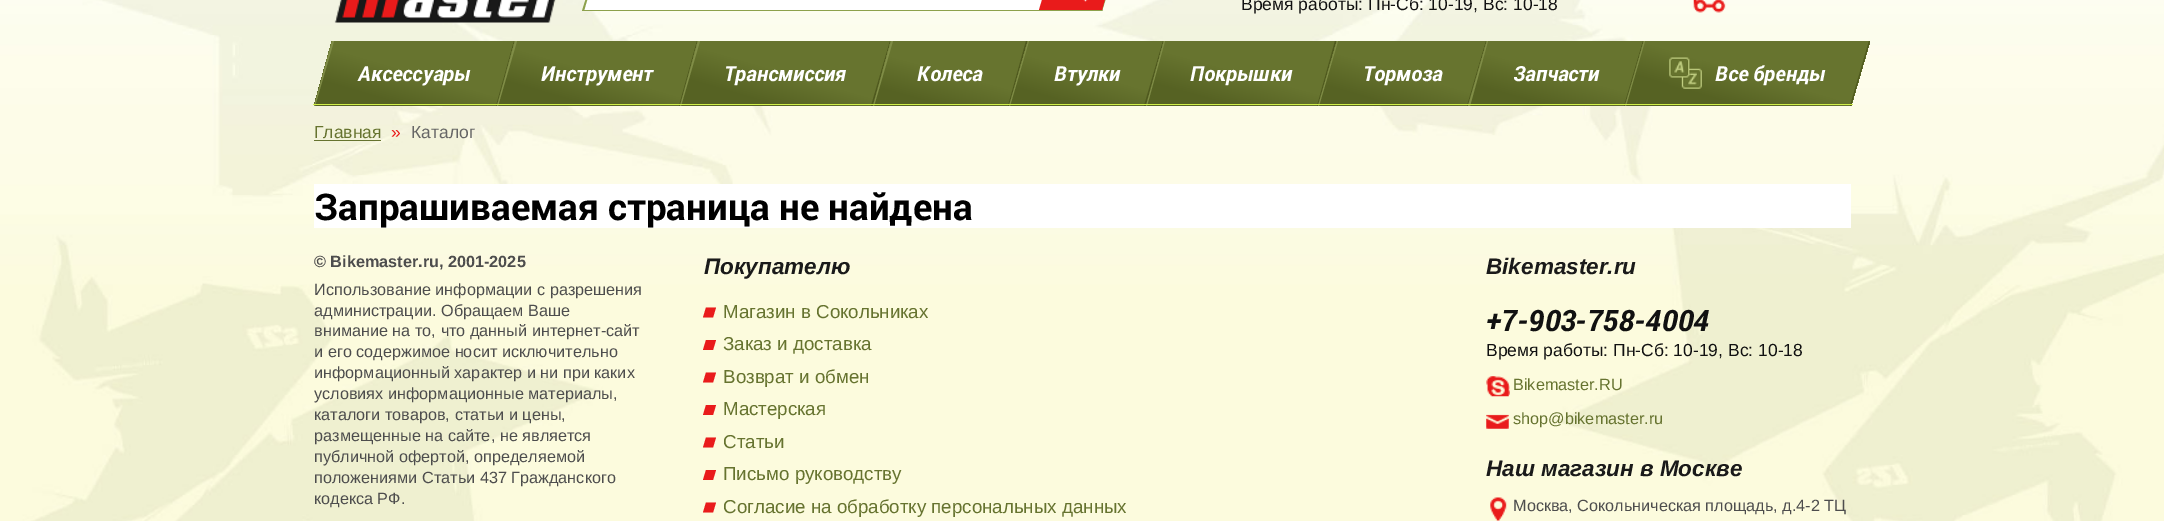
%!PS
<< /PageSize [2164 521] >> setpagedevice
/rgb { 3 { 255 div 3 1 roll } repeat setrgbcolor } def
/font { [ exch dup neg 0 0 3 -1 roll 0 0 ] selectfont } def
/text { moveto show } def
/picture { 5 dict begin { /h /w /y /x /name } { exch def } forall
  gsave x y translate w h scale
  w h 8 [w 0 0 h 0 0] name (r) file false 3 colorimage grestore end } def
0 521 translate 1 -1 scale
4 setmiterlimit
255 255 255 rgb
0 0 2164 521 rectfill
(img_01.rgb) 0 0 2164 521 picture
(img_02.rgb) 334 0 222 23 picture
596 -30 moveto 455 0 rlineto -12 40 rlineto -455 0 rlineto closepath fill
141 161 76 rgb
583 10 moveto 456 0 rlineto 0 1 rlineto -457 0 rlineto closepath fill
595 -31 moveto 1 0 rlineto -12 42 rlineto -2 0 rlineto closepath fill
255 255 255 rgb
608 -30 moveto 437 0 rlineto 0 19 rlineto -6 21 rlineto -431 0 rlineto closepath fill
233 27 27 rgb
1051 -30 moveto 62 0 rlineto -11 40 rlineto -63 0 rlineto closepath fill
141 161 76 rgb
1113 -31 moveto 2 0 rlineto -13 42 rlineto -1 0 rlineto closepath fill
1039 10 moveto 64 0 rlineto -1 1 rlineto -63 0 rlineto closepath fill
233 27 27 rgb
1045 -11 moveto 6 -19 rlineto 57 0 rlineto 0 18 rlineto -6 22 rlineto -57 0 rlineto closepath fill
(img_03.rgb) 1083 0 5 2 picture
(img_04.rgb) 1693 0 33 13 picture
gsave 332 41 moveto 183 0 rlineto -18 65 rlineto -183 0 rlineto closepath clip newpath
<< /ShadingType 2 /ColorSpace /DeviceRGB /Coords [424 41 405 106] /Extend [true true] /Function << /FunctionType 3 /Domain [0 1] /Functions [<< /FunctionType 2 /Domain [0 1] /C0 [0.404 0.455 0.184] /C1 [0.404 0.455 0.184] /N 1 >> << /FunctionType 2 /Domain [0 1] /C0 [0.404 0.455 0.184] /C1 [0.337 0.384 0.137] /N 1 >>] /Bounds [0.5] /Encode [0 1 0 1] >> >> shfill grestore
79 89 30 rgb
514 41 moveto 1 0 rlineto -18 65 rlineto -1 0 rlineto closepath fill
128 141 71 rgb
332 41 moveto 2 0 rlineto -19 65 rlineto -1 0 rlineto closepath fill
208 239 74 rgb
313 104 185 1 rectfill
gsave 515 41 moveto 183 0 rlineto -18 65 rlineto -183 0 rlineto closepath clip newpath
<< /ShadingType 2 /ColorSpace /DeviceRGB /Coords [607 41 588 106] /Extend [true true] /Function << /FunctionType 3 /Domain [0 1] /Functions [<< /FunctionType 2 /Domain [0 1] /C0 [0.404 0.455 0.184] /C1 [0.404 0.455 0.184] /N 1 >> << /FunctionType 2 /Domain [0 1] /C0 [0.404 0.455 0.184] /C1 [0.337 0.384 0.137] /N 1 >>] /Bounds [0.5] /Encode [0 1 0 1] >> >> shfill grestore
79 89 30 rgb
697 41 moveto 1 0 rlineto -18 65 rlineto -1 0 rlineto closepath fill
128 141 71 rgb
515 41 moveto 2 0 rlineto -19 65 rlineto -1 0 rlineto closepath fill
208 239 74 rgb
495 104 186 1 rectfill
gsave 698 41 moveto 193 0 rlineto -18 65 rlineto -193 0 rlineto closepath clip newpath
<< /ShadingType 2 /ColorSpace /DeviceRGB /Coords [795 41 776 106] /Extend [true true] /Function << /FunctionType 3 /Domain [0 1] /Functions [<< /FunctionType 2 /Domain [0 1] /C0 [0.404 0.455 0.184] /C1 [0.404 0.455 0.184] /N 1 >> << /FunctionType 2 /Domain [0 1] /C0 [0.404 0.455 0.184] /C1 [0.337 0.384 0.137] /N 1 >>] /Bounds [0.5] /Encode [0 1 0 1] >> >> shfill grestore
79 89 30 rgb
890 41 moveto 1 0 rlineto -18 65 rlineto -2 0 rlineto closepath fill
128 141 71 rgb
698 41 moveto 2 0 rlineto -19 65 rlineto -1 0 rlineto closepath fill
208 239 74 rgb
679 104 195 1 rectfill
gsave 891 41 moveto 137 0 rlineto -19 65 rlineto -136 0 rlineto closepath clip newpath
<< /ShadingType 2 /ColorSpace /DeviceRGB /Coords [959 41 941 106] /Extend [true true] /Function << /FunctionType 3 /Domain [0 1] /Functions [<< /FunctionType 2 /Domain [0 1] /C0 [0.404 0.455 0.184] /C1 [0.404 0.455 0.184] /N 1 >> << /FunctionType 2 /Domain [0 1] /C0 [0.404 0.455 0.184] /C1 [0.337 0.384 0.137] /N 1 >>] /Bounds [0.5] /Encode [0 1 0 1] >> >> shfill grestore
79 89 30 rgb
1026 41 moveto 2 0 rlineto -19 65 rlineto -1 0 rlineto closepath fill
128 141 71 rgb
891 41 moveto 2 0 rlineto -19 65 rlineto -1 0 rlineto closepath fill
208 239 74 rgb
871 104 139 1 rectfill
gsave 1028 41 moveto 136 0 rlineto -18 65 rlineto -137 0 rlineto closepath clip newpath
<< /ShadingType 2 /ColorSpace /DeviceRGB /Coords [1096 41 1077 106] /Extend [true true] /Function << /FunctionType 3 /Domain [0 1] /Functions [<< /FunctionType 2 /Domain [0 1] /C0 [0.404 0.455 0.184] /C1 [0.404 0.455 0.184] /N 1 >> << /FunctionType 2 /Domain [0 1] /C0 [0.404 0.455 0.184] /C1 [0.337 0.384 0.137] /N 1 >>] /Bounds [0.5] /Encode [0 1 0 1] >> >> shfill grestore
79 89 30 rgb
1163 41 moveto 1 0 rlineto -18 65 rlineto -2 0 rlineto closepath fill
128 141 71 rgb
1028 41 moveto 1 0 rlineto -19 65 rlineto -1 0 rlineto closepath fill
208 239 74 rgb
1008 104 138 1 rectfill
gsave 1164 41 moveto 173 0 rlineto -19 65 rlineto -172 0 rlineto closepath clip newpath
<< /ShadingType 2 /ColorSpace /DeviceRGB /Coords [1250 41 1232 106] /Extend [true true] /Function << /FunctionType 3 /Domain [0 1] /Functions [<< /FunctionType 2 /Domain [0 1] /C0 [0.404 0.455 0.184] /C1 [0.404 0.455 0.184] /N 1 >> << /FunctionType 2 /Domain [0 1] /C0 [0.404 0.455 0.184] /C1 [0.337 0.384 0.137] /N 1 >>] /Bounds [0.5] /Encode [0 1 0 1] >> >> shfill grestore
79 89 30 rgb
1335 41 moveto 2 0 rlineto -19 65 rlineto -1 0 rlineto closepath fill
128 141 71 rgb
1164 41 moveto 1 0 rlineto -18 65 rlineto -1 0 rlineto closepath fill
208 239 74 rgb
1144 104 175 1 rectfill
gsave 1337 41 moveto 150 0 rlineto -19 65 rlineto -150 0 rlineto closepath clip newpath
<< /ShadingType 2 /ColorSpace /DeviceRGB /Coords [1412 41 1393 106] /Extend [true true] /Function << /FunctionType 3 /Domain [0 1] /Functions [<< /FunctionType 2 /Domain [0 1] /C0 [0.404 0.455 0.184] /C1 [0.404 0.455 0.184] /N 1 >> << /FunctionType 2 /Domain [0 1] /C0 [0.404 0.455 0.184] /C1 [0.337 0.384 0.137] /N 1 >>] /Bounds [0.5] /Encode [0 1 0 1] >> >> shfill grestore
79 89 30 rgb
1486 41 moveto 1 0 rlineto -19 65 rlineto -1 0 rlineto closepath fill
128 141 71 rgb
1337 41 moveto 1 0 rlineto -19 65 rlineto -1 0 rlineto closepath fill
208 239 74 rgb
1316 104 154 1 rectfill
gsave 1487 41 moveto 157 0 rlineto -19 65 rlineto -157 0 rlineto closepath clip newpath
<< /ShadingType 2 /ColorSpace /DeviceRGB /Coords [1565 41 1547 106] /Extend [true true] /Function << /FunctionType 3 /Domain [0 1] /Functions [<< /FunctionType 2 /Domain [0 1] /C0 [0.404 0.455 0.184] /C1 [0.404 0.455 0.184] /N 1 >> << /FunctionType 2 /Domain [0 1] /C0 [0.404 0.455 0.184] /C1 [0.337 0.384 0.137] /N 1 >>] /Bounds [0.5] /Encode [0 1 0 1] >> >> shfill grestore
79 89 30 rgb
1643 41 moveto 1 0 rlineto -19 65 rlineto -1 0 rlineto closepath fill
128 141 71 rgb
1487 41 moveto 1 0 rlineto -18 65 rlineto -2 0 rlineto closepath fill
208 239 74 rgb
1468 104 158 1 rectfill
gsave 1644 41 moveto 226 0 rlineto -19 65 rlineto -226 0 rlineto closepath clip newpath
<< /ShadingType 2 /ColorSpace /DeviceRGB /Coords [1757 41 1738 106] /Extend [true true] /Function << /FunctionType 3 /Domain [0 1] /Functions [<< /FunctionType 2 /Domain [0 1] /C0 [0.404 0.455 0.184] /C1 [0.404 0.455 0.184] /N 1 >> << /FunctionType 2 /Domain [0 1] /C0 [0.404 0.455 0.184] /C1 [0.337 0.384 0.137] /N 1 >>] /Bounds [0.5] /Encode [0 1 0 1] >> >> shfill grestore
79 89 30 rgb
1869 41 moveto 1 0 rlineto -19 65 rlineto -1 0 rlineto closepath fill
128 141 71 rgb
1644 41 moveto 1 0 rlineto -19 65 rlineto -1 0 rlineto closepath fill
(img_05.rgb) 1669 57 33 32 picture
208 239 74 rgb
1624 104 229 1 rectfill
102 115 47 rgb
314 140 67 1 rectfill
255 255 255 rgb
314 184 1537 44 rectfill
233 27 27 rgb
706 307.5 moveto 10 0 rlineto -3 10 rlineto -10 0 rlineto closepath fill
706 340 moveto 10 0 rlineto -3 10 rlineto -10 0 rlineto closepath fill
706 372.5 moveto 10 0 rlineto -3 10 rlineto -10 0 rlineto closepath fill
706 405 moveto 10 0 rlineto -3 10 rlineto -10 0 rlineto closepath fill
706 437.5 moveto 10 0 rlineto -3 10 rlineto -10 0 rlineto closepath fill
706 470 moveto 10 0 rlineto -3 10 rlineto -10 0 rlineto closepath fill
706 502.5 moveto 10 0 rlineto -3 10 rlineto -10 0 rlineto closepath fill
(img_06.rgb) 1486 376 24 21 picture
(img_07.rgb) 1486 414 23 15 picture
(img_08.rgb) 1490 497 17 24 picture
/LiberationSans-Regular 17.5 font
17 17 17 rgb
(Время работы: Пн-Сб: 10-19, Вс: 10-18) 1241 10 text
/Roboto-BoldItalic 21.25 font
255 255 255 rgb
(Аксессуары) 358 81 text
(Инструмент) 541 81 text
(Трансмиссия) 724 81 text
(Колеса) 917 81 text
(Втулки) 1054 81 text
(Покрышки) 1190 81 text
(Тормоза) 1363 81 text
(Запчасти) 1513 81 text
(Все бренды) 1715 81 text
/LiberationSans-Regular 17.5 font
102 115 47 rgb
(Главная) 314 138 text
233 27 27 rgb
(») 391 138 text
102 102 102 rgb
(Каталог) 411 138 text
/Roboto-Bold 37.5 font
0 0 0 rgb
(Запрашиваемая страница не найдена) 314 220 text
/LiberationSans-Bold 16.25 font
77 77 77 rgb
(© Bikemaster.ru, 2001-2025) 314 267 text
/LiberationSans-Regular 16.25 font
(Использование информации с разрешения) 314 295 text
(администрации. Обращаем Ваше) 314 316 text
(внимание на то, что данный интернет-сайт) 314 336 text
(и его содержимое носит исключительно) 314 357 text
(информационный характер и ни при каких) 314 378 text
(условиях информационные материалы,) 314 399 text
(каталоги товаров, статьи и цены,) 314 420 text
(размещенные на сайте, не является) 314 441 text
(публичной офертой, определяемой) 314 462 text
(положениями Статьи 437 Гражданского) 314 483 text
(кодекса РФ.) 314 504 text
/LiberationSans-BoldItalic 22.5 font
26 26 26 rgb
(Покупателю) 704 274 text
/LiberationSans-Regular 18.75 font
102 115 47 rgb
(Магазин в Сокольниках) 723 318 text
(Заказ и доставка) 723 350 text
(Возврат и обмен) 723 383 text
(Мастерская) 723 415 text
(Статьи) 723 448 text
(Письмо руководству) 723 480 text
(Согласие на обработку персональных данных) 723 513 text
/LiberationSans-BoldItalic 22.5 font
26 26 26 rgb
(Bikemaster.ru) 1486 274 text
/Roboto-BoldItalic 30 font
17 17 17 rgb
(+7-903-758-4004) 1486 331 text
/LiberationSans-Regular 17.5 font
(Время работы: Пн-Сб: 10-19, Вс: 10-18) 1486 356 text
/LiberationSans-Regular 16.25 font
102 115 47 rgb
(Bikemaster.RU) 1513 390 text
(shop@bikemaster.ru) 1513 424 text
/LiberationSans-BoldItalic 22.5 font
26 26 26 rgb
(Наш магазин в Москве) 1486 476 text
/LiberationSans-Regular 16.25 font
77 77 77 rgb
(Москва, Сокольническая площадь, д.4-2 ТЦ) 1513 511 text
showpage
